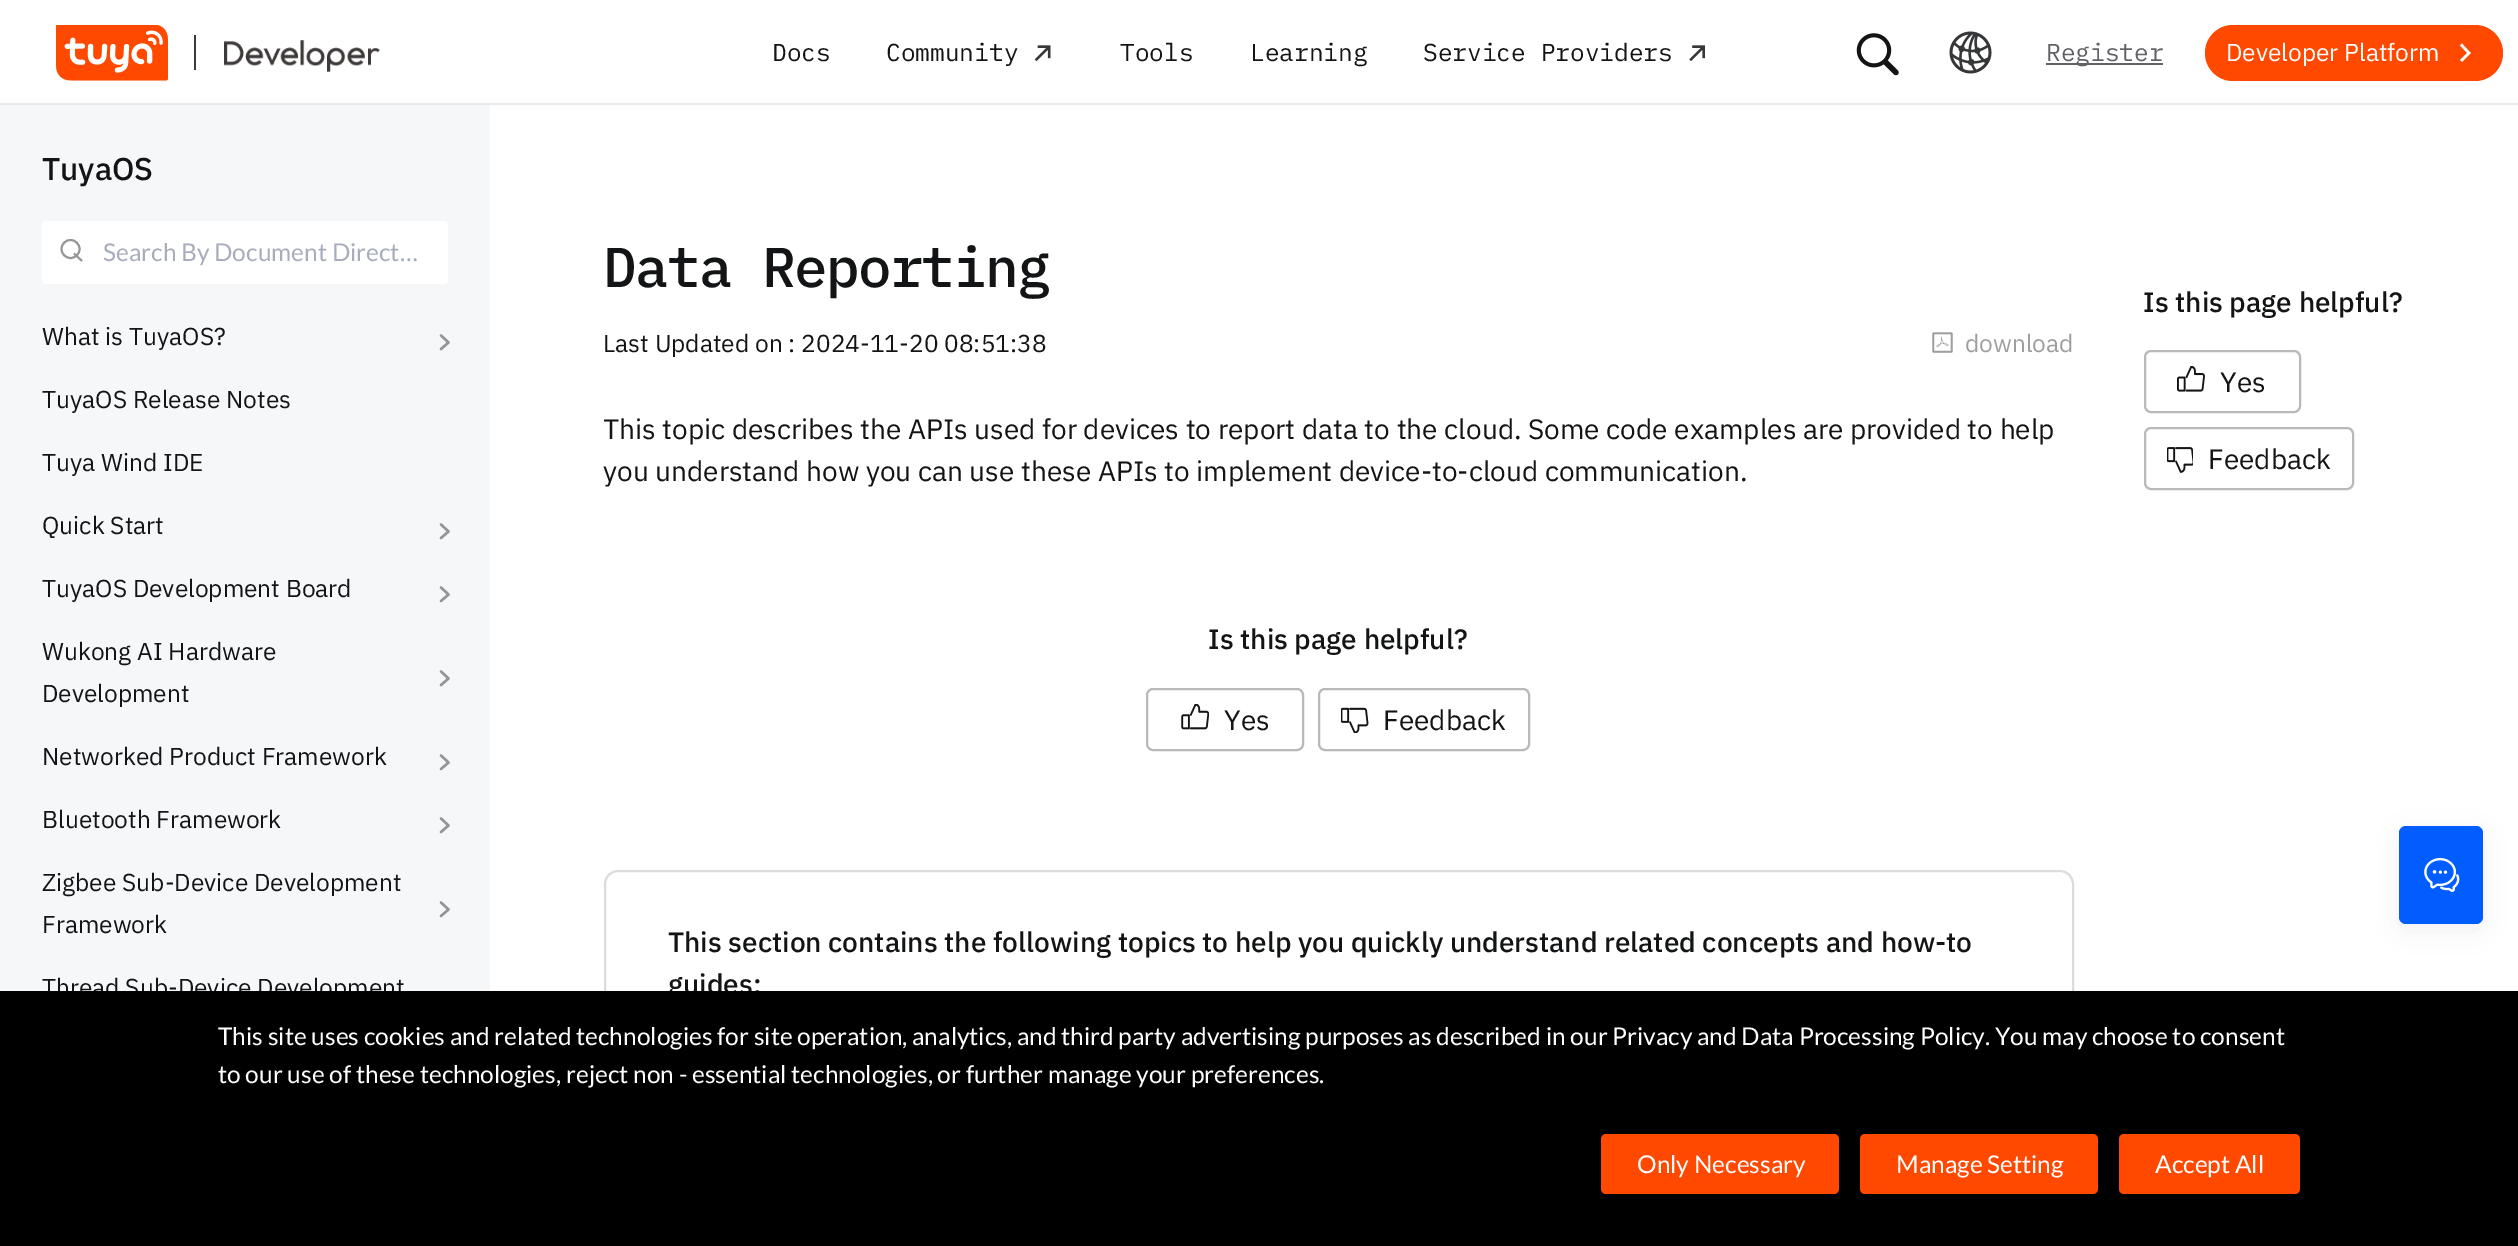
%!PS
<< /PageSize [2518 1246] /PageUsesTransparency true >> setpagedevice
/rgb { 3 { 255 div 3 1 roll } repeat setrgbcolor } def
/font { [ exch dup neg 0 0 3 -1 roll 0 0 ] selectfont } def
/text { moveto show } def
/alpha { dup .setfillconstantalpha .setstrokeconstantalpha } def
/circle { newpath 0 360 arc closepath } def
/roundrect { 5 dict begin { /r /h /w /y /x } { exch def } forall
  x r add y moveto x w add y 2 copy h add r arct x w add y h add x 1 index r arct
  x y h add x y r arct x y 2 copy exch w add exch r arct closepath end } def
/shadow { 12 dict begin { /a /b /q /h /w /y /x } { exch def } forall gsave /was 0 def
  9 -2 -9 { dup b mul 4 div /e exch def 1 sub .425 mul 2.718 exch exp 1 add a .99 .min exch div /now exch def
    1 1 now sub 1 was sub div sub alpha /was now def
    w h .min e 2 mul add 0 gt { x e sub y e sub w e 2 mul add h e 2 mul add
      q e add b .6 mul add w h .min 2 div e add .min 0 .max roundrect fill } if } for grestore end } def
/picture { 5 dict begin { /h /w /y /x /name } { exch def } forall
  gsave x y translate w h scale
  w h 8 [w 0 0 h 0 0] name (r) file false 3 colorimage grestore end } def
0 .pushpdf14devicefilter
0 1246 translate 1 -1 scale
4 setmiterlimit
255 255 255 rgb
0 0 2518 1246 rectfill
(img_01.rgb) 56 25 112 56 picture
62 58 57 rgb
194 35 2 35 rectfill
(img_02.rgb) 224 40 156 32 picture
(img_03.rgb) 1034 45 17 17 picture
(img_04.rgb) 1689 45 16 17 picture
(img_05.rgb) 1856 33 43 43 picture
(img_06.rgb) 1949 31 43 43 picture
96 98 102 rgb
2046 63 117 2 rectfill
255 72 0 rgb
2205 25 298 56 28 roundrect fill
255 255 255 rgb
2.6 setlinewidth
2467.5 53 moveto 1 0 rlineto 2461 44.5 moveto 8 8.5 rlineto -8 8 rlineto stroke
231 233 237 rgb
0 103 2518 2 rectfill
246 247 248 rgb
0 105 490 886 rectfill
255 255 255 rgb
42 221 406 63 4 roundrect fill
151 151 151 rgb
2 setlinewidth
70.5 249 9 circle stroke
74 253.5 moveto 8 7.5 rlineto stroke
145 149 154 rgb
2.4 setlinewidth
1 setlinecap
1 setlinejoin
441 335.5 moveto 7.5 7 rlineto -7.5 6.5 rlineto stroke
441 524.5 moveto 7.5 7 rlineto -7.5 6.5 rlineto stroke
441 587.5 moveto 7.5 7 rlineto -7.5 6.5 rlineto stroke
441 671.5 moveto 7.5 7 rlineto -7.5 6.5 rlineto stroke
441 755.5 moveto 7.5 7 rlineto -7.5 6.5 rlineto stroke
441 818.5 moveto 7.5 7 rlineto -7.5 6.5 rlineto stroke
441 902.5 moveto 7.5 7 rlineto -7.5 6.5 rlineto stroke
(img_07.rgb) 1932 332 21 21 picture
184 185 185 rgb
2 setlinewidth
0 setlinecap
0 setlinejoin
1147 689 156 61 6 roundrect stroke
(img_08.rgb) 1181 704 28 26 picture
1319 689 210 61 6 roundrect stroke
(img_09.rgb) 1341 707 28 26 picture
220 220 220 rgb
605 871 1468 253 13 roundrect stroke
184 185 185 rgb
2145 351 155 61 6 roundrect stroke
(img_10.rgb) 2177 366 28 26 picture
2145 428 208 61 6 roundrect stroke
(img_11.rgb) 2167 447 26 26 picture
19 20 21 rgb
2399 833 84 98 7 14 0.06 shadow
2 93 255 rgb
2399 826 84 98 7 roundrect fill
(img_12.rgb) 2424 857 36 35 picture
/IBMPlexMono-Regular 24.5 font
19 20 21 rgb
(Docs) 772 61 text
(Community) 886 61 text
(Tools) 1120 61 text
(Learning) 1250 61 text
(Service Providers) 1423 61 text
96 98 102 rgb
(Register) 2046 61 text
/IBMPlexSans-Regular 24.5 font
255 255 255 rgb
(Developer Platform) 2226 61 text
/IBMPlexSans-Medium 31.5 font
19 20 21 rgb
(TuyaOS) 42 180 text
/Lato-Regular 24.5 font
167 173 186 rgb
(Search By Document Direct…) 103 261 text
/IBMPlexSans-Regular 24.5 font
19 20 21 rgb
(What is TuyaOS?) 42 345 text
(TuyaOS Release Notes) 42 408 text
(Tuya Wind IDE) 42 471 text
(Quick Start) 42 534 text
(TuyaOS Development Board) 42 597 text
(Wukong AI Hardware) 42 660 text
(Development) 42 702 text
(Networked Product Framework) 42 765 text
(Bluetooth Framework) 42 828 text
(Zigbee Sub-Device Development) 42 891 text
(Framework) 42 933 text
(Thread Sub-Device Development) 42 996 text
/IBMPlexMono-Medium 56 font
603 287 moveto -1.75 0 (Data Reporting) ashow
/IBMPlexSans-Regular 24.5 font
(Last Updated on : 2024-11-20 08:51:38) 603 352 text
157 158 157 rgb
(download) 1965 352 text
gsave
604 210 1470 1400 rectclip
/IBMPlexSans-Regular 28 font
19 20 21 rgb
(This topic describes the APIs used for devices to report data to the cloud. Some code examples are provided to help) 603 439 text
grestore
/IBMPlexSans-Regular 28 font
19 20 21 rgb
(you understand how you can use these APIs to implement device-to-cloud communication.) 603 481 text
/IBMPlexSans-Medium 28 font
(Is this page helpful?) 1208 649 text
/IBMPlexSans-Regular 28 font
(Yes) 1224 730 text
(Feedback) 1383 730 text
/IBMPlexSans-Medium 28 font
(This section contains the following topics to help you quickly understand related concepts and how-to) 668 952 text
(guides:) 668 994 text
(Is this page helpful?) 2143 312 text
/IBMPlexSans-Regular 28 font
(Yes) 2220 392 text
(Feedback) 2208 469 text
0 0 0 rgb
0 991 2518 255 rectfill
/Lato-Regular 24.5 font
255 255 255 rgb
(This site uses cookies and related technologies for site operation, analytics, and third party advertising purposes as described in our Privacy and Data Processing Policy. You may choose to consent) 218 1045 text
(to our use of these technologies, reject non - essential technologies, or further manage your preferences.) 218 1083 text
255 72 0 rgb
1601 1134 238 60 5 roundrect fill
255 255 255 rgb
(Only Necessary) 1637 1173 text
255 72 0 rgb
1860 1134 238 60 5 roundrect fill
255 255 255 rgb
(Manage Setting) 1896 1173 text
255 72 0 rgb
2119 1134 181 60 5 roundrect fill
255 255 255 rgb
(Accept All) 2155 1173 text
.poppdf14devicefilter showpage
